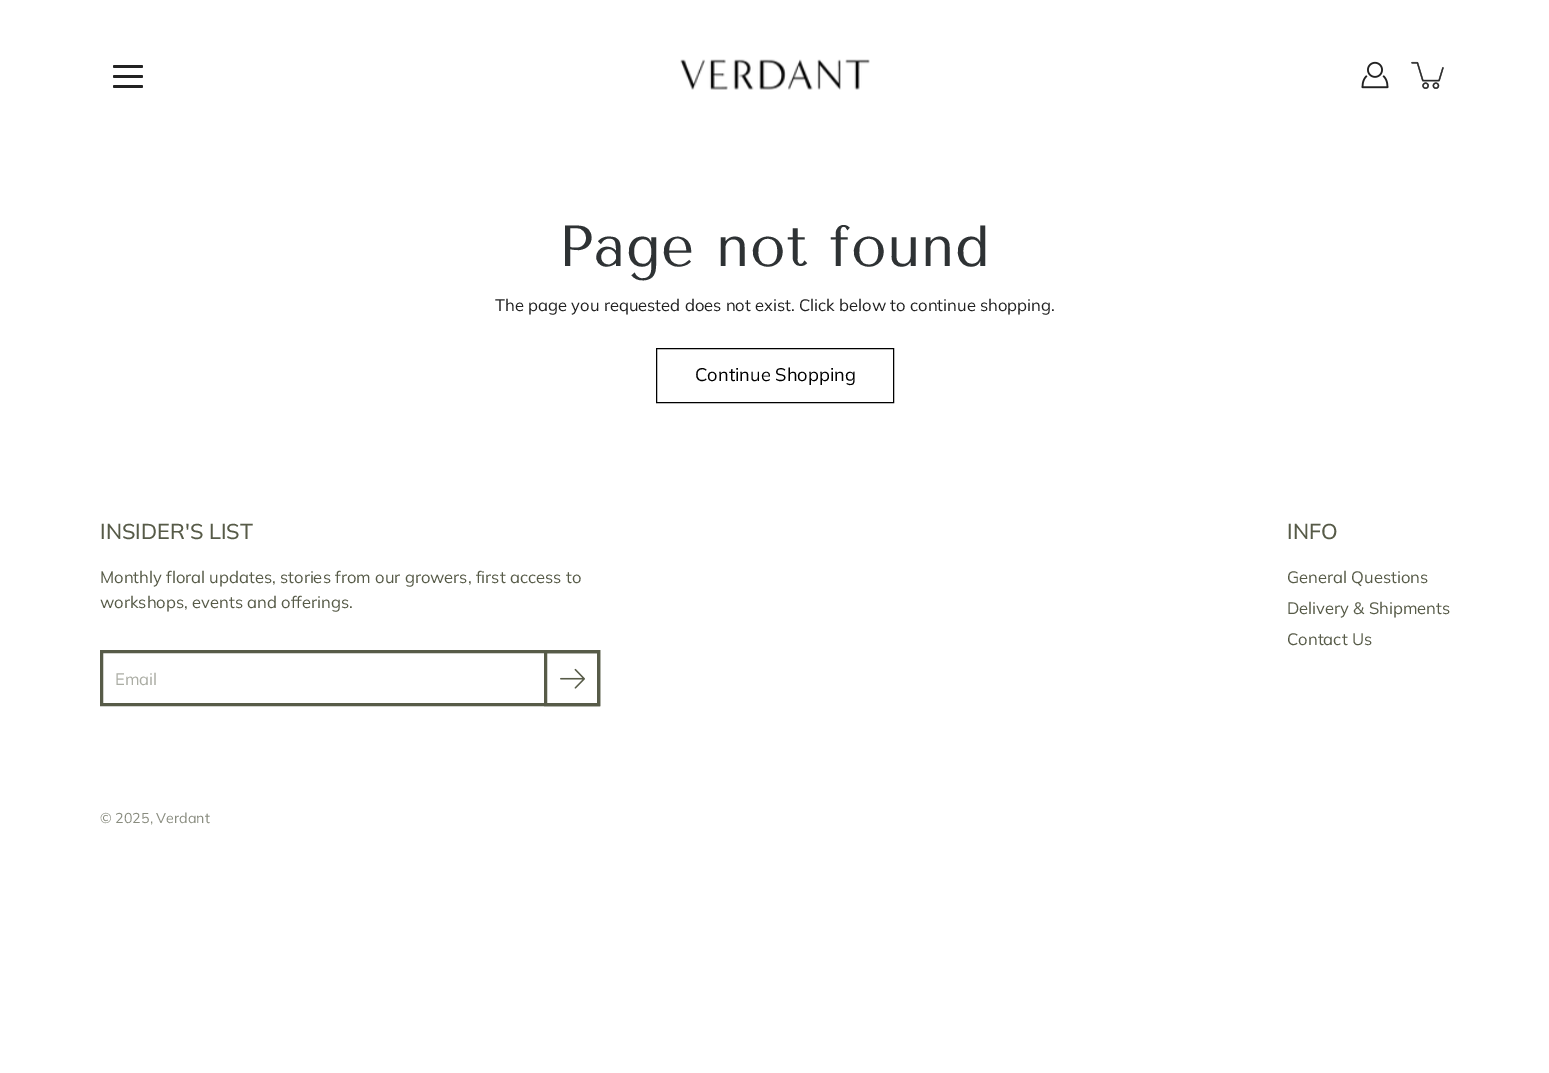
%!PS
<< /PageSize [1549 1073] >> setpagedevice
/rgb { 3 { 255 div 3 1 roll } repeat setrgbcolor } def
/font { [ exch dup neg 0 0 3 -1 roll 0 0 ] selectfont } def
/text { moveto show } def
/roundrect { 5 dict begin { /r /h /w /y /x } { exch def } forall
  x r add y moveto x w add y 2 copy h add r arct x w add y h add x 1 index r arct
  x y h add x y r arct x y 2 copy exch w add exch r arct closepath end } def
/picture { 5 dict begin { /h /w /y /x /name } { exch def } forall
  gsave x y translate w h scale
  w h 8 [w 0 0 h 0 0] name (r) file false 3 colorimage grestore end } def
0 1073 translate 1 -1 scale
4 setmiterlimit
255 255 255 rgb
0 0 1549 1073 rectfill
(img_01.rgb) 680 59 190 31 picture
34 34 34 rgb
113 75 30 3 1.5 roundrect fill
113 65 30 3 1.5 roundrect fill
113 85 30 3 1.5 roundrect fill
(img_02.rgb) 1361 61 28 28 picture
(img_03.rgb) 1411 61 33 28 picture
0 0 0 rgb
656.5 348.5 237 54 rectstroke
87 91 72 rgb
3 setlinewidth
101.5 651.5 497 53 rectstroke
545.5 651.5 53 53 rectstroke
(img_04.rgb) 560 668 25 21 picture
/TenorSans-Regular 57.75 font
46 50 52 rgb
558 266 moveto 0.6 0 (Page not found) ashow
/Muli-Regular 16.6 font
34 34 34 rgb
(The page you requested does not exist. Click below to continue shopping.) 495 311 text
/Muli-Regular 18.25 font
0 0 0 rgb
(Continue Shopping) 695 381 text
/Muli-Medium 21.5 font
87 91 72 rgb
(INSIDER'S LIST) 100 539 text
/Muli-Regular 16.6 font
(Monthly floral updates, stories from our growers, first access to) 100 583 text
(workshops, events and offerings.) 100 608 text
171 173 164 rgb
(Email) 115 685 text
/Muli-Medium 21.5 font
87 91 72 rgb
(INFO) 1287 539 text
/Muli-Regular 16.6 font
(General Questions) 1287 583 text
(Delivery & Shipments) 1287 614 text
(Contact Us) 1287 645 text
/Muli-Regular 14.25 font
137 140 127 rgb
(© 2025, Verdant) 100 823 text
showpage
